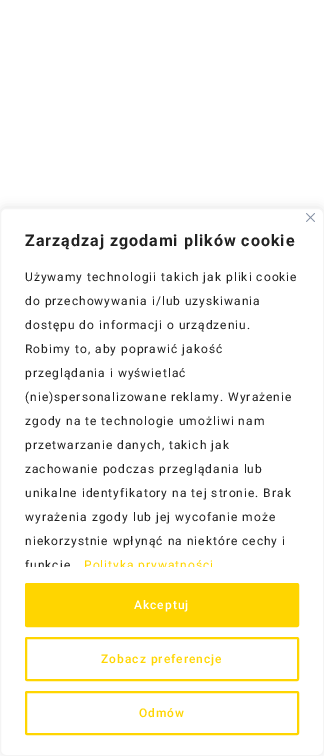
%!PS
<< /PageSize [324 756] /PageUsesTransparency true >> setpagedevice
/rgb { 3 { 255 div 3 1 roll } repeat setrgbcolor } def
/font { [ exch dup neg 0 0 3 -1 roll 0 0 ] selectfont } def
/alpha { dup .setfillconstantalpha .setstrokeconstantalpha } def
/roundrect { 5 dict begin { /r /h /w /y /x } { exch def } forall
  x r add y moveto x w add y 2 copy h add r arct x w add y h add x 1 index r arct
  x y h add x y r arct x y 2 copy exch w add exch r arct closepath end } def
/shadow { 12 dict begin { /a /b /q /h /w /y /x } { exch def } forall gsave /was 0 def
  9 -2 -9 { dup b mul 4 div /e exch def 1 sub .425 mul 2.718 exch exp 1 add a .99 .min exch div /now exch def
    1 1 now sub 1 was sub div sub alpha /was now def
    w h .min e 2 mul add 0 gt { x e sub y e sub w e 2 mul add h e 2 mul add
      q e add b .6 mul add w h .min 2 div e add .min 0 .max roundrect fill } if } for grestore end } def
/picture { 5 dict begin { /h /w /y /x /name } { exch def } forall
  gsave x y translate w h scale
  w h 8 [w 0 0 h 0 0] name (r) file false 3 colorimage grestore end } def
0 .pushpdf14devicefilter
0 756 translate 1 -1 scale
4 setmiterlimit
255 255 255 rgb
0 0 324 756 rectfill
172 171 171 rgb
0 207 324 548 6 5 0.3 shadow
255 255 255 rgb
0.5 208.5 323 547 5.5 roundrect gsave fill grestore
244 244 244 rgb
stroke
(img_01.rgb) 306 213 9 9 picture
255 213 0 rgb
26 584 272 42 1 roundrect gsave fill grestore
2 setlinewidth
stroke
26 638 272 42 1 roundrect stroke
26 692 272 42 1 roundrect stroke
/Roboto-Bold 16 font
33 33 33 rgb
25 246 moveto 1 0 (Zarządzaj zgodami plików cookie) ashow
/Roboto-Regular 12 font
25 281 moveto 1 0 (Używamy technologii takich jak pliki cookie) ashow
25 305 moveto 1 0 (do przechowywania i/lub uzyskiwania) ashow
25 329 moveto 1 0 (dostępu do informacji o urządzeniu.) ashow
25 353 moveto 1 0 (Robimy to, aby poprawić jakość) ashow
25 377 moveto 1 0 (przeglądania i wyświetlać) ashow
25 401 moveto 1 0 (\(nie\)spersonalizowane reklamy. Wyrażenie) ashow
25 425 moveto 1 0 (zgody na te technologie umożliwi nam) ashow
25 449 moveto 1 0 (przetwarzanie danych, takich jak) ashow
25 473 moveto 1 0 (zachowanie podczas przeglądania lub) ashow
25 497 moveto 1 0 (unikalne identyfikatory na tej stronie. Brak) ashow
25 521 moveto 1 0 (wyrażenia zgody lub jej wycofanie może) ashow
25 545 moveto 1 0 (niekorzystnie wpłynąć na niektóre cechy i) ashow
gsave
1 265 322 302 rectclip
25 569 moveto 1 0 (funkcje) ashow
255 213 0 rgb
84 569 moveto 1 0 (Polityka prywatności) ashow
grestore
/Roboto-Medium 12 font
255 255 255 rgb
134 609 moveto 1 0 (Akceptuj) ashow
255 213 0 rgb
101 663 moveto 1 0 (Zobacz preferencje) ashow
139 717 moveto 1 0 (Odmów) ashow
.poppdf14devicefilter showpage
